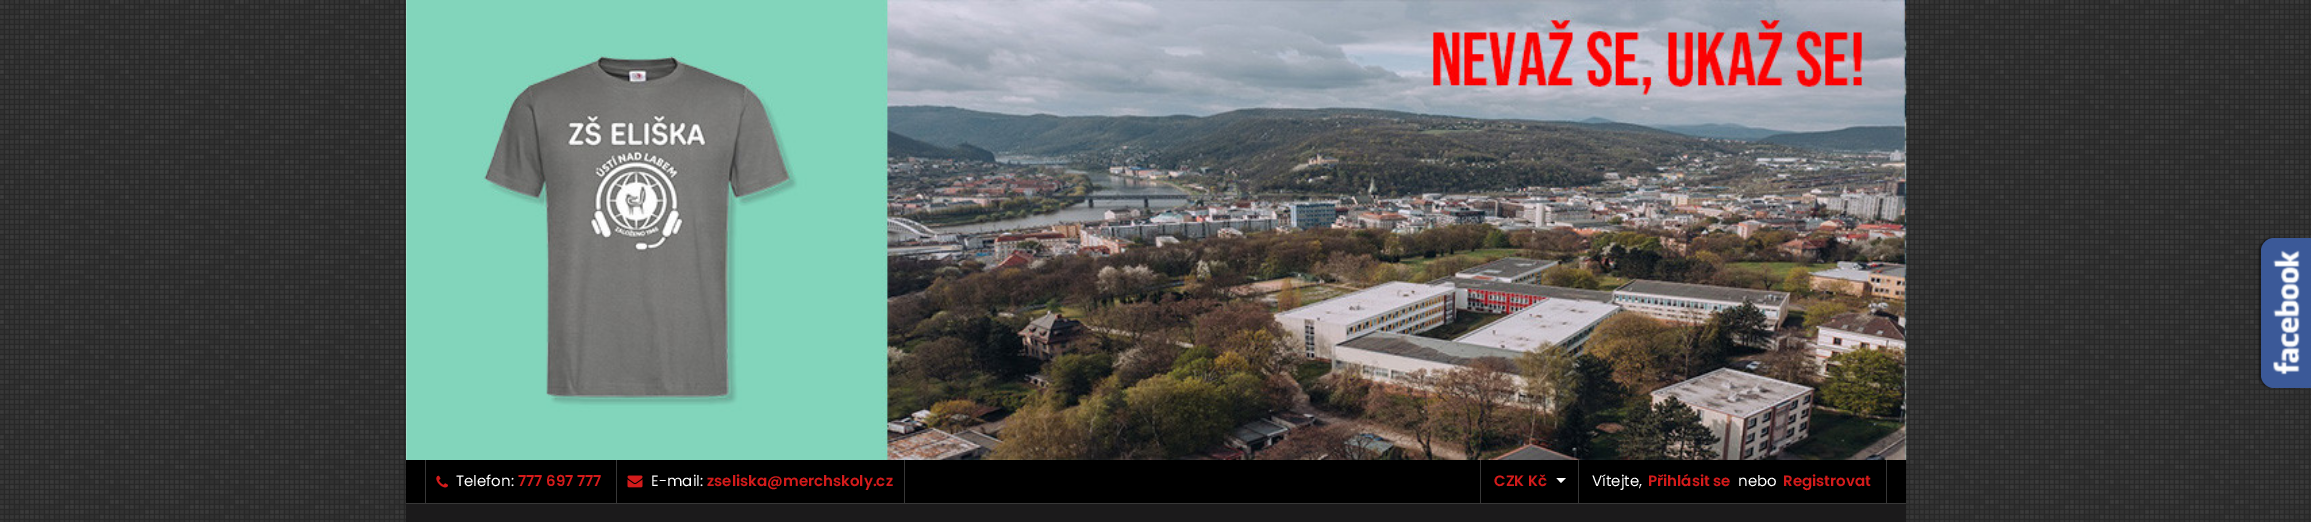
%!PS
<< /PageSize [2311 522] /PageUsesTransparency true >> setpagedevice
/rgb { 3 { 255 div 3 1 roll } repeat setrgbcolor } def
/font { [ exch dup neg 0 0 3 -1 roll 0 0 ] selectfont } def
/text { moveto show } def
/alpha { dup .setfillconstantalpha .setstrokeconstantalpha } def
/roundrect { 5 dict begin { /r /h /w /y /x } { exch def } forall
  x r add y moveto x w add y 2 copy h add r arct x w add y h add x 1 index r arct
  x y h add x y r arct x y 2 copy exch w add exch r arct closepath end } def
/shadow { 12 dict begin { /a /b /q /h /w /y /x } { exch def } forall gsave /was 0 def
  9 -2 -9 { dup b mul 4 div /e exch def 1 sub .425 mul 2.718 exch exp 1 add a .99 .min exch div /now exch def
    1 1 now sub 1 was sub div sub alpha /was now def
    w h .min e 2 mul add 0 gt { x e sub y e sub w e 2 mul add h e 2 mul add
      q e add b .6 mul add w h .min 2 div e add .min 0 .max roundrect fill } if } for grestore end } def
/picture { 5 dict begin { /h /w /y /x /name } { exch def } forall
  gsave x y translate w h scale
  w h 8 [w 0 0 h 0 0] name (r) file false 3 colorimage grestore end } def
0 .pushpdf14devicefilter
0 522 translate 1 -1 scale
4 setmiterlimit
255 255 255 rgb
0 0 2311 522 rectfill
(img_01.rgb) 0 0 2311 522 picture
0 0 0 rgb
406 0 1500 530 0 2.5 0.2 shadow
2259 238 50 150 13 1 0.5 shadow
59 89 152 rgb
2274 238 moveto 37 0 rlineto 0 150 rlineto -37 0 rlineto -7 0 -13 -6 -13 -13 rcurveto 0 -124 rlineto 0 -7 6 -13 13 -13 rcurveto closepath fill
(img_02.rgb) 2273 250 27 125 picture
(img_03.rgb) 406 0 1501 460 picture
0 0 0 rgb
406 460 1500 43 rectfill
56 56 56 rgb
406 503 1500 1 rectfill
425 460 1 43 rectfill
(img_04.rgb) 436 475 12 13 picture
904 460 1 43 rectfill
616 460 1 43 rectfill
(img_05.rgb) 627 475 16 13 picture
1480 460 1 43 rectfill
255 255 255 rgb
1556.5 478 moveto 9.5 0 rlineto -5 5 rlineto closepath fill
56 56 56 rgb
1886 460 1 43 rectfill
1578 460 1 43 rectfill
27 26 27 rgb
406 504 1500 18 rectfill
/Poppins-Regular 15 font
255 255 255 rgb
(Telefon:) 456 486 text
/Poppins-SemiBold 15 font
212 27 27 rgb
(777 697 777) 518 486 text
/Poppins-Regular 15 font
255 255 255 rgb
(E-mail:) 651 486 text
/Poppins-SemiBold 15 font
212 27 27 rgb
(zseliska@merchskoly.cz) 707 486 text
(CZK Kč) 1494 486 text
/Poppins-Regular 15 font
255 255 255 rgb
(Vítejte,) 1592 486 text
/Poppins-SemiBold 15 font
212 27 27 rgb
(Přihlásit se) 1648 486 text
/Poppins-Regular 15 font
255 255 255 rgb
(nebo) 1738 486 text
/Poppins-SemiBold 15 font
212 27 27 rgb
(Registrovat) 1783 486 text
.poppdf14devicefilter showpage
